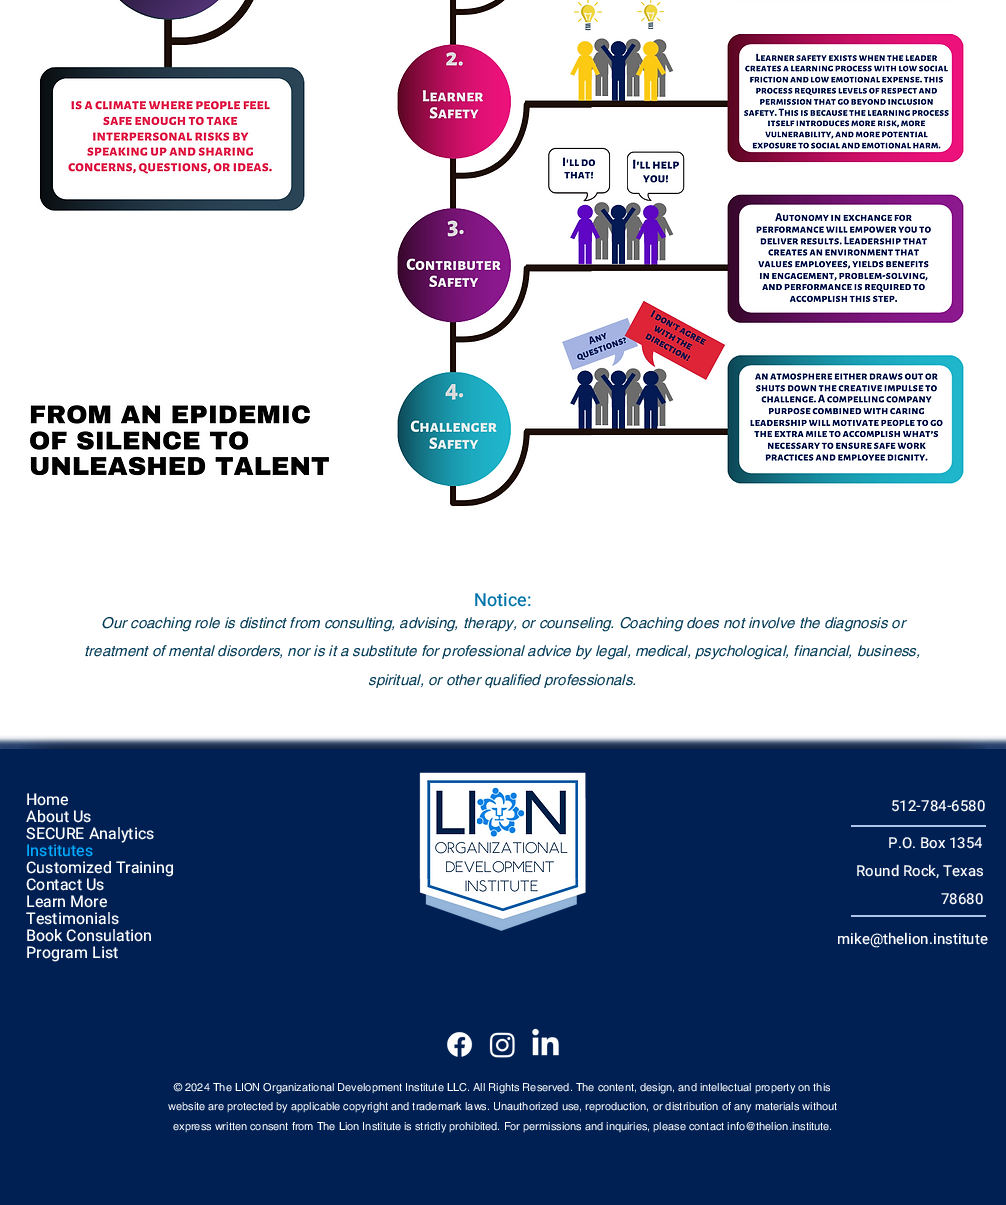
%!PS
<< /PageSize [1006 1205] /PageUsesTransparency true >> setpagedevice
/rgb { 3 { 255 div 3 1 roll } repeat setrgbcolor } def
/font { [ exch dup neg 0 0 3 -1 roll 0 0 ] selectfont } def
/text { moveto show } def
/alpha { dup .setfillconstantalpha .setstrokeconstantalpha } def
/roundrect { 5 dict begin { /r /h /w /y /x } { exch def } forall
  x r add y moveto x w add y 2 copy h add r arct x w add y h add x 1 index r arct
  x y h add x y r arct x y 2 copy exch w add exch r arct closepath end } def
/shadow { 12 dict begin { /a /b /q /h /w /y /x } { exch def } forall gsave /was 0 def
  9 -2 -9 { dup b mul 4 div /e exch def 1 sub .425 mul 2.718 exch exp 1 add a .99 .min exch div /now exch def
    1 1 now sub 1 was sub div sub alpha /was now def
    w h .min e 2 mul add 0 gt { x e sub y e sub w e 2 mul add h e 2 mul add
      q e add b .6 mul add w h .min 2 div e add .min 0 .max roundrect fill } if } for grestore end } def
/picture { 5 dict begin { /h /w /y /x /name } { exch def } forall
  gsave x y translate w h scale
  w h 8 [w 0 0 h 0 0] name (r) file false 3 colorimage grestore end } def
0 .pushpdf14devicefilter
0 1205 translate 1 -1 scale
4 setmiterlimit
255 255 255 rgb
0 0 1006 1205 rectfill
(img_01.rgb) 30 0 936 508 picture
0 31 83 rgb
-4 741 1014 464 0 2.5 0.87 shadow
0 749 1006 456 rectfill
(img_02.rgb) 20 738 93 11 picture
(img_03.rgb) 113 738 780 11 picture
(img_04.rgb) 893 738 93 11 picture
(img_05.rgb) 419 772 167 159 picture
175 196 233 rgb
851 825 135 2 rectfill
851 915 135 2 rectfill
(img_06.rgb) 447 1031 26 26 picture
(img_07.rgb) 489 1032 26 26 picture
(img_08.rgb) 532 1028 27 28 picture
/Heebo-Medium 18 font
0 115 170 rgb
(Notice:) 474 606 text
/helvetica-Italic 15 font
0 57 85 rgb
(Our coaching role is distinct from consulting, advising, therapy, or counseling. Coaching does not involve the diagnosis or) 101 628 text
(treatment of mental disorders, nor is it a substitute for professional advice by legal, medical, psychological, financial, business,) 84 656 text
(spiritual, or other qualified professionals.) 368 685 text
/Heebo-Medium 16 font
255 255 255 rgb
(Home) 26 805 text
(About Us) 26 822 text
(SECURE Analytics) 26 839 text
0 172 255 rgb
(Institutes) 26 856 text
255 255 255 rgb
(Customized Training) 26 873 text
(Contact Us) 26 890 text
(Learn More) 26 907 text
(Testimonials) 26 924 text
(Book Consulation) 26 941 text
(Program List) 26 958 text
/Heebo-Medium 15 font
(512-784-6580) 891 811 text
(P.O. Box 1354) 888 848 text
(Round Rock, Texas) 856 876 text
(78680) 941 904 text
(mike@thelion.institute) 837 944 text
/helvetica-Regular 11 font
(© 2024 The LION Organizational Development Institute LLC. All Rights Reserved. The content, design, and intellectual property on this) 174 1091 text
(website are protected by applicable copyright and trademark laws. Unauthorized use, reproduction, or distribution of any materials without) 168 1110 text
(express written consent from The Lion Institute is strictly prohibited. For permissions and inquiries, please contact info@thelion.institute.) 173 1130 text
.poppdf14devicefilter showpage
